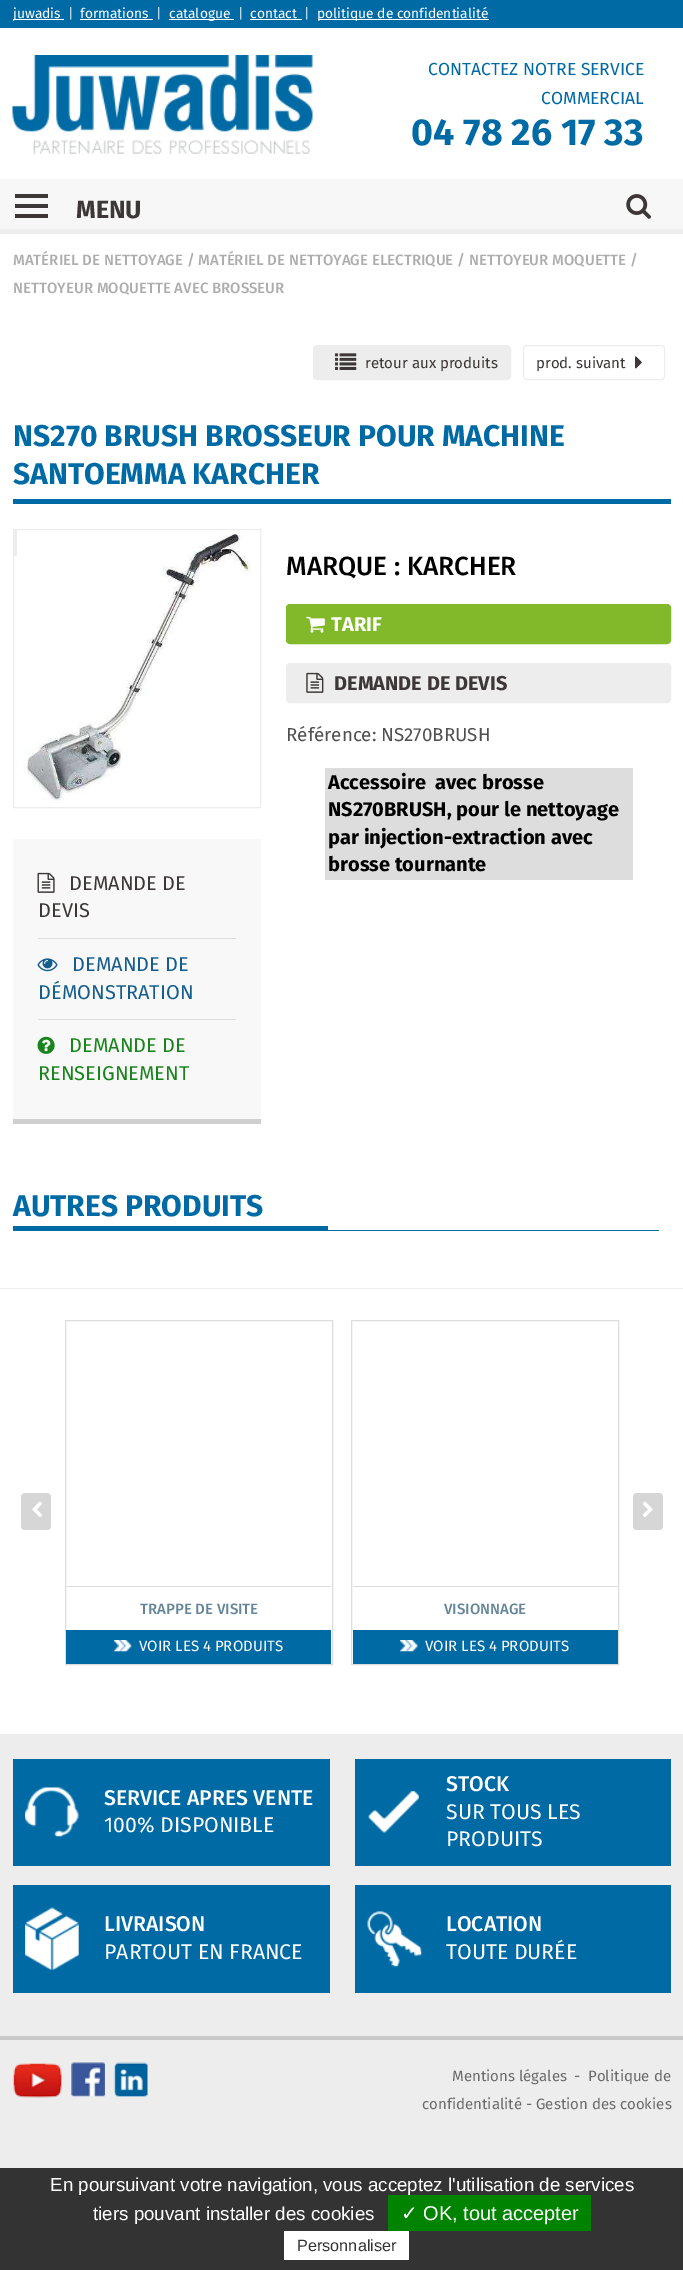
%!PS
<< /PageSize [683 2270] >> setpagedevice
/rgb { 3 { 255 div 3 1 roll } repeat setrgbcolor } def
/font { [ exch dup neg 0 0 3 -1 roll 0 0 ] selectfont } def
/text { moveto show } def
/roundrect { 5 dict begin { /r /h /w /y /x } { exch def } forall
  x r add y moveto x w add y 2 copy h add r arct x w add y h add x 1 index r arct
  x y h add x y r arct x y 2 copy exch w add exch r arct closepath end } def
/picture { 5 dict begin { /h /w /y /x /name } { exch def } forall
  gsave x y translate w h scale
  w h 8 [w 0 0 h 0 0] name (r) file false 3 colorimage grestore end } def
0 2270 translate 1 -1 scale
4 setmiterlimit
237 237 237 rgb
0 0 683 2270 rectfill
255 255 255 rgb
0 28 683 151 rectfill
0 106 164 rgb
0 0 683 28 rectfill
255 255 255 rgb
13 19 51 1 rectfill
80 19 73 1 rectfill
169 19 65 1 rectfill
250 19 52 1 rectfill
318 19 171 1 rectfill
(img_01.rgb) 12 55 301 99 picture
247 247 247 rgb
0 179 683 50 rectfill
61 55 55 rgb
15 204 33 4 rectfill
15 194 33 4 rectfill
15 214 33 4 rectfill
(img_02.rgb) 626 194 25 25 picture
255 255 255 rgb
0 234 683 1500 rectfill
237 237 237 rgb
313.5 345.5 197 34 3.5 roundrect gsave fill grestore
stroke
(img_03.rgb) 335 353 22 17 picture
523.5 345.5 141 34 3.5 roundrect stroke
(img_04.rgb) 635 356 7 13 picture
0 106 164 rgb
13 499 658 5 rectfill
130 185 42 rgb
286.5 604.5 384 39 3.5 roundrect gsave fill grestore
stroke
(img_05.rgb) 306 616 19 17 picture
237 237 237 rgb
286.5 663.5 384 39 3.5 roundrect gsave fill grestore
stroke
(img_06.rgb) 306 672 18 21 picture
221 221 221 rgb
325 768 308 112 rectfill
237 237 237 rgb
13.5 529.5 247 278 rectstroke
14 530 3 26 rectfill
(img_07.rgb) 22 530 229 271 picture
248 248 248 rgb
13 839 248 280 rectfill
207 207 207 rgb
13 1119 248 5 rectfill
221 221 221 rgb
38 938 198 1 rectfill
(img_08.rgb) 37 872 18 21 picture
38 1019 198 1 rectfill
(img_09.rgb) 37 958 21 14 picture
(img_10.rgb) 37 1036 18 18 picture
0 106 164 rgb
13 1230 646 1 rectfill
13 1226 315 4 rectfill
237 237 237 rgb
0 1288 683 1 rectfill
214 214 214 rgb
21 1493 30 37 4 roundrect fill
(img_11.rgb) 32 1501 10 16 picture
633 1493 30 37 4 roundrect fill
(img_12.rgb) 642 1501 11 16 picture
221 221 221 rgb
65.5 1320.5 267 344 rectstroke
66 1586 265 1 rectfill
0 106 164 rgb
66 1630 265 34 rectfill
(img_13.rgb) 113 1640 19 12 picture
221 221 221 rgb
351.5 1320.5 267 344 rectstroke
353 1586 265 1 rectfill
0 106 164 rgb
353 1630 265 34 rectfill
(img_14.rgb) 400 1640 18 12 picture
13 1759 317 107 rectfill
(img_15.rgb) 25 1787 54 50 picture
355 1759 316 107 rectfill
(img_16.rgb) 368 1791 51 42 picture
13 1885 317 108 rectfill
(img_17.rgb) 25 1907 54 63 picture
355 1885 316 108 rectfill
(img_18.rgb) 367 1911 55 56 picture
201 201 201 rgb
0 2036 683 4 rectfill
(img_19.rgb) 13 2063 49 35 picture
(img_20.rgb) 71 2062 34 35 picture
(img_21.rgb) 113 2062 35 35 picture
51 51 51 rgb
0 2168 683 102 rectfill
0 131 0 rgb
388 2195 203 36 rectfill
255 255 255 rgb
284 2231 125 29 rectfill
/FiraSans-Regular 13.75 font
(juwadis) 13 18 text
(|) 68 18 text
(formations) 80 18 text
(|) 156 18 text
(catalogue) 169 18 text
(|) 238 18 text
(contact) 250 18 text
(|) 304 18 text
(politique de confidentialité) 317 18 text
/FiraSans-Regular 17.5 font
0 106 164 rgb
(CONTACTEZ NOTRE SERVICE) 428 75 text
(COMMERCIAL) 541 104 text
/FiraSans-Bold 37.5 font
(04 78 26 17 33) 411 145 text
/FiraSans-Bold 25 font
61 55 55 rgb
(MENU) 76 218 text
/FiraSans-Medium 15 font
174 173 173 rgb
(MATÉRIEL DE NETTOYAGE / MATÉRIEL DE NETTOYAGE ELECTRIQUE / NETTOYEUR MOQUETTE /) 13 265 text
(NETTOYEUR MOQUETTE AVEC BROSSEUR) 13 293 text
/FiraSans-Regular 15 font
61 55 55 rgb
(retour aux produits) 365 368 text
(prod. suivant) 536 368 text
/FiraSans-Bold 30 font
0 106 164 rgb
(NS270 BRUSH BROSSEUR POUR MACHINE) 13 446 text
(SANTOEMMA KARCHER) 13 484 text
/FiraSans-Medium 26.25 font
0 0 0 rgb
(MARQUE : KARCHER) 286 575 text
/FiraSans-Bold 20 font
255 255 255 rgb
(TARIF) 331 631 text
61 55 55 rgb
(DEMANDE DE DEVIS) 334 690 text
/FiraSans-Regular 18.75 font
80 80 80 rgb
(Référence: NS270BRUSH) 286 741 text
/FiraSans-Bold 20 font
0 0 0 rgb
(Accessoire  avec brosse) 328 789 text
(NS270BRUSH, pour le nettoyage) 328 816 text
(par injection-extraction avec) 328 844 text
(brosse tournante) 328 871 text
/FiraSans-Regular 20 font
61 55 55 rgb
(DEMANDE DE) 69 890 text
(DEVIS) 38 917 text
21 94 140 rgb
(DEMANDE DE) 72 971 text
(DÉMONSTRATION) 38 999 text
26 132 28 rgb
(DEMANDE DE) 69 1052 text
(RENSEIGNEMENT) 38 1080 text
/FiraSans-Bold 30 font
0 106 164 rgb
(AUTRES PRODUITS) 13 1216 text
/FiraSans-Medium 15 font
101 134 152 rgb
(TRAPPE DE VISITE) 140 1614 text
/FiraSans-Regular 15 font
255 255 255 rgb
(VOIR LES 4 PRODUITS) 139 1651 text
/FiraSans-Medium 15 font
101 134 152 rgb
(VISIONNAGE) 444 1614 text
/FiraSans-Regular 15 font
255 255 255 rgb
(VOIR LES 4 PRODUITS) 425 1651 text
/FiraSans-Medium 21.25 font
(SERVICE APRES VENTE) 104 1805 text
/FiraSans-Regular 21.25 font
(100% DISPONIBLE) 104 1832 text
/FiraSans-Medium 21.25 font
(STOCK) 446 1791 text
/FiraSans-Regular 21.25 font
(SUR TOUS LES) 446 1819 text
(PRODUITS) 446 1846 text
/FiraSans-Medium 21.25 font
(LIVRAISON) 104 1931 text
/FiraSans-Regular 21.25 font
(PARTOUT EN FRANCE) 104 1959 text
/FiraSans-Medium 21.25 font
(LOCATION) 446 1931 text
/FiraSans-Regular 21.25 font
(TOUTE DURÉE) 446 1959 text
/FiraSans-Regular 15 font
107 107 107 rgb
(Mentions légales) 452 2081 text
(-) 574 2081 text
(Politique de) 588 2081 text
(confidentialité - Gestion des cookies) 422 2109 text
/LiberationSans-Regular 18.75 font
255 255 255 rgb
(En poursuivant votre navigation, vous acceptez l'utilisation de services) 50 2191 text
(tiers pouvant installer des cookies) 93 2220 text
/DejaVuSans-Regular 20 font
(✓) 401 2220 text
/LiberationSans-Regular 20 font
(OK, tout accepter) 423 2220 text
/LiberationSans-Regular 16.25 font
51 51 51 rgb
(Personnaliser) 297 2251 text
showpage
